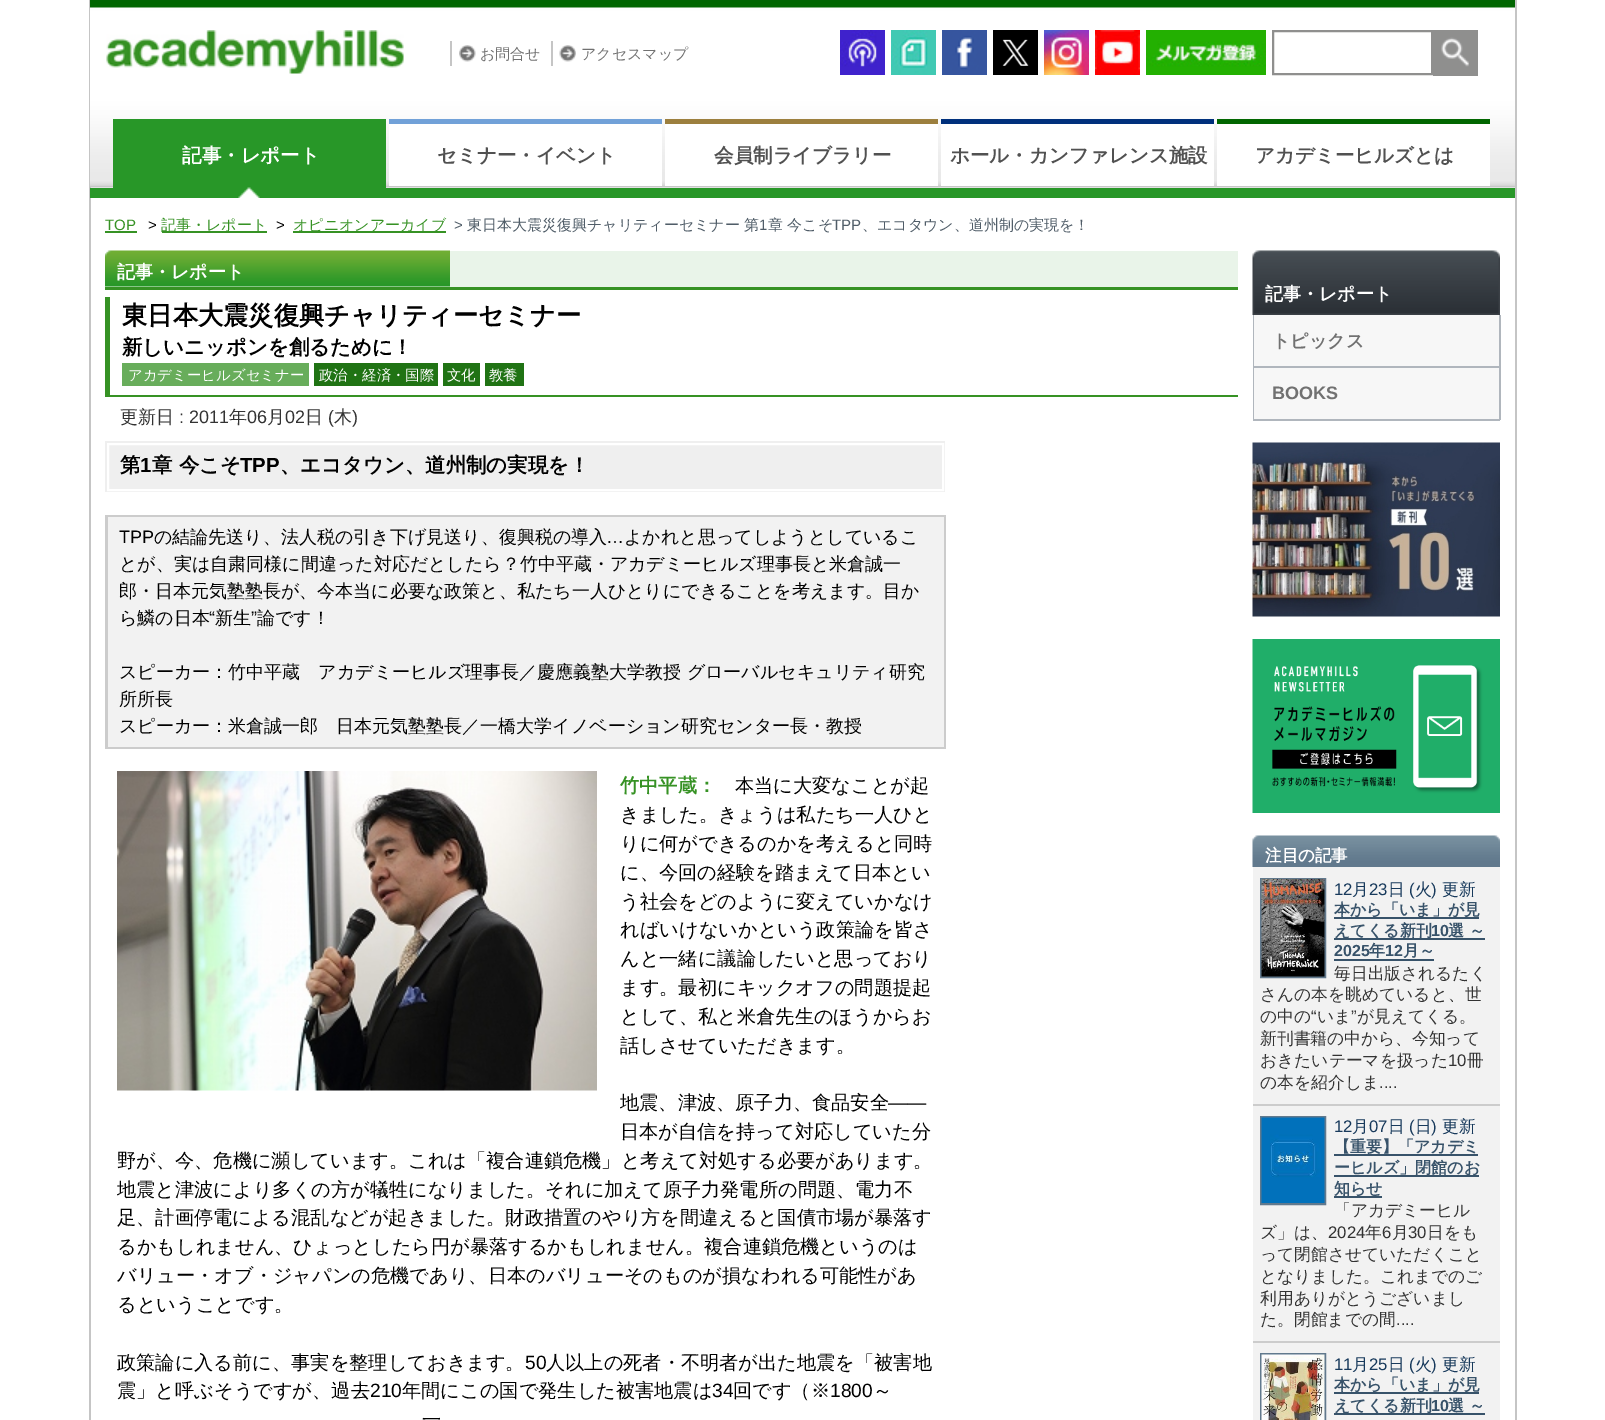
%!PS
<< /PageSize [1605 1420] >> setpagedevice
/rgb { 3 { 255 div 3 1 roll } repeat setrgbcolor } def
/font { [ exch dup neg 0 0 3 -1 roll 0 0 ] selectfont } def
/text { moveto show } def
/picture { 5 dict begin { /h /w /y /x /name } { exch def } forall
  gsave x y translate w h scale
  w h 8 [w 0 0 h 0 0] name (r) file false 3 colorimage grestore end } def
0 1420 translate 1 -1 scale
4 setmiterlimit
255 255 255 rgb
0 0 1605 1420 rectfill
197 197 197 rgb
1515 0 2 1420 rectfill
89 0 2 1420 rectfill
(img_01.rgb) 90 0 1425 188 picture
(img_02.rgb) 106 30 298 44 picture
450 41 2 25 rectfill
(img_03.rgb) 459 45 17 17 picture
551 41 2 25 rectfill
(img_04.rgb) 559 45 17 17 picture
(img_05.rgb) 840 30 45 45 picture
(img_06.rgb) 891 30 45 45 picture
(img_07.rgb) 942 30 45 45 picture
(img_08.rgb) 993 30 45 45 picture
(img_09.rgb) 1044 30 45 45 picture
(img_10.rgb) 1095 30 45 45 picture
(img_11.rgb) 1146 30 120 45 picture
143 143 142 rgb
2 setlinewidth
1273 31 159 43 rectstroke
1433 30 45 46 rectfill
(img_12.rgb) 1441 37 28 30 picture
40 151 40 rgb
113 119 273 69 rectfill
90 188 1425 10 rectfill
(img_13.rgb) 238 187 22 11 picture
255 255 255 rgb
389 124 273 62 rectfill
113 161 216 rgb
389 119 273 5 rectfill
255 255 255 rgb
665 124 273 62 rectfill
156 127 62 rgb
665 119 273 5 rectfill
255 255 255 rgb
941 124 273 62 rectfill
0 48 124 rgb
941 119 273 5 rectfill
255 255 255 rgb
1217 124 273 62 rectfill
1 102 0 rgb
1217 119 273 5 rectfill
54 146 36 rgb
105 231 32 2 rectfill
162 231 105 2 rectfill
293 231 153 2 rectfill
233 244 233 rgb
105 251 1133 36 rectfill
54 146 36 rgb
105 287 1133 3 rectfill
(img_14.rgb) 105 250 345 37 picture
105 395 1133 2 rectfill
105 297 5 99 rectfill
104 173 91 rgb
122 363 187 23 rectfill
32 115 20 rgb
314 363 124 23 rectfill
443 363 37 23 rectfill
485 363 39 23 rectfill
239 239 239 rgb
105 441 840 51 rectfill
255 255 255 rgb
108 444 835 46 rectstroke
242 242 242 rgb
108 517 836 230 rectfill
204 204 204 rgb
105 515 840 2 rectfill
944 515 2 234 rectfill
105 747 840 2 rectfill
105 515 3 234 rectfill
(img_15.rgb) 117 771 480 320 picture
(img_16.rgb) 1252 250 248 65 picture
176 182 189 rgb
1499 315 2 105 rectfill
1253 366 247 2 rectfill
1253 315 2 53 rectfill
247 247 247 rgb
1254 315 245 51 rectfill
176 182 189 rgb
1253 419 247 2 rectfill
1253 368 2 52 rectfill
247 247 247 rgb
1254 368 245 51 rectfill
(img_17.rgb) 1252 442 248 175 picture
(img_18.rgb) 1252 639 248 174 picture
(img_19.rgb) 1252 835 248 32 picture
242 242 242 rgb
1253 867 247 237 rectfill
204 204 204 rgb
1253 1104 247 2 rectfill
97 121 141 rgb
1261 879 64 98 rectstroke
(img_20.rgb) 1261 879 64 98 picture
56 83 106 rgb
1334 917 145 2 rectfill
1334 938 151 2 rectfill
1334 959 100 2 rectfill
242 242 242 rgb
1253 1106 247 235 rectfill
204 204 204 rgb
1253 1341 247 2 rectfill
97 121 141 rgb
1261 1117 64 87 rectstroke
(img_21.rgb) 1261 1117 64 86 picture
56 83 106 rgb
1334 1154 144 2 rectfill
1334 1175 145 2 rectfill
1334 1196 48 2 rectfill
242 242 242 rgb
1253 1343 247 77 rectfill
97 121 141 rgb
1261 1354 64 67 rectstroke
(img_22.rgb) 1261 1354 64 66 picture
56 83 106 rgb
1334 1392 145 2 rectfill
1334 1413 151 2 rectfill
/WenQuanYiZenHei-Medium 15 font
113 113 113 rgb
(お問合せ) 480 59 text
(アクセスマップ) 581 59 text
/WenQuanYiZenHei-Bold 19.5 font
255 255 255 rgb
(記事・レポート) 182 162 text
81 81 81 rgb
(セミナー・イベント) 437 162 text
(会員制ライブラリー) 714 162 text
(ホール・カンファレンス施設) 950 162 text
(アカデミーヒルズとは) 1255 162 text
/LiberationSans-Regular 15 font
54 146 36 rgb
(TOP) 105 230 text
0 0 0 rgb
(>) 148 230 text
/WenQuanYiZenHei-Medium 15 font
54 146 36 rgb
(記事・レポート) 161 230 text
/LiberationSans-Regular 15 font
0 0 0 rgb
(>) 276 230 text
/WenQuanYiZenHei-Medium 15 font
54 146 36 rgb
(オピニオンアーカイブ) 293 230 text
/LiberationSans-Regular 15 font
80 93 104 rgb
(>) 454 230 text
/WenQuanYiZenHei-Medium 15 font
(東日本大震災復興チャリティーセミナー) 467 230 text
(第) 744 230 text
/LiberationSans-Regular 15 font
(1) 759 230 text
/WenQuanYiZenHei-Medium 15 font
(章 今こそ) 768 230 text
/LiberationSans-Regular 15 font
(TPP) 832 230 text
/WenQuanYiZenHei-Medium 15 font
(、エコタウン、道州制の実現を！) 862 230 text
/WenQuanYiZenHei-Bold 18 font
255 255 255 rgb
(記事・レポート) 117 278 text
/WenQuanYiZenHei-Bold 25.25 font
0 0 0 rgb
(東日本大震災復興チャリティーセミナー) 122 324 text
/WenQuanYiZenHei-Bold 20.4 font
(新しいニッポンを創るために！) 122 354 text
/WenQuanYiZenHei-Medium 14.4 font
255 255 255 rgb
(アカデミーヒルズセミナー) 128 380 text
(政治・経済・国際) 319 380 text
(文化) 447 380 text
(教養) 489 380 text
/WenQuanYiZenHei-Medium 18 font
51 51 51 rgb
(更新日) 120 423 text
/LiberationSans-Regular 18 font
(: 2011) 179 423 text
/WenQuanYiZenHei-Medium 18 font
(年) 229 423 text
/LiberationSans-Regular 18 font
(06) 247 423 text
/WenQuanYiZenHei-Medium 18 font
(月) 267 423 text
/LiberationSans-Regular 18 font
(02) 285 423 text
/WenQuanYiZenHei-Medium 18 font
(日) 305 423 text
/LiberationSans-Regular 18 font
(\() 328 423 text
/WenQuanYiZenHei-Medium 18 font
(木) 334 423 text
/LiberationSans-Regular 18 font
(\)) 352 423 text
/WenQuanYiZenHei-Bold 20.4 font
0 0 0 rgb
(第) 120 472 text
/LiberationSans-Bold 20.4 font
(1) 140 472 text
/WenQuanYiZenHei-Bold 20.4 font
(章 今こそ) 152 472 text
/LiberationSans-Bold 20.4 font
(TPP) 240 472 text
/WenQuanYiZenHei-Bold 20.4 font
(、エコタウン、道州制の実現を！) 280 472 text
/LiberationSans-Regular 18 font
(TPP) 119 543 text
/WenQuanYiZenHei-Medium 18 font
(の結論先送り、法人税の引き下げ見送り、復興税の導入) 154 543 text
/LiberationSans-Regular 18 font
(…) 606 543 text
/WenQuanYiZenHei-Medium 18 font
(よかれと思ってしようとしているこ) 624 543 text
(とが、実は自粛同様に間違った対応だとしたら？竹中平蔵・アカデミーヒルズ理事長と米倉誠一) 119 570 text
(郎・日本元気塾塾長が、今本当に必要な政策と、私たち一人ひとりにできることを考えます。目か) 119 597 text
(ら鱗の日本) 119 624 text
/LiberationSans-Regular 18 font
(“) 209 624 text
/WenQuanYiZenHei-Medium 18 font
(新生) 215 624 text
/LiberationSans-Regular 18 font
(”) 251 624 text
/WenQuanYiZenHei-Medium 18 font
(論です！) 257 624 text
(スピーカー：竹中平蔵　アカデミーヒルズ理事長／慶應義塾大学教授 グローバルセキュリティ研究) 119 678 text
(所所長) 119 705 text
(スピーカー：米倉誠一郎　日本元気塾塾長／一橋大学イノベーション研究センター長・教授) 119 732 text
/WenQuanYiZenHei-Bold 19.2 font
54 146 36 rgb
(竹中平蔵：) 620 792 text
/WenQuanYiZenHei-Medium 19.2 font
0 0 0 rgb
(本当に大変なことが起) 735 792 text
(きました。きょうは私たち一人ひと) 620 821 text
(りに何ができるのかを考えると同時) 620 850 text
(に、今回の経験を踏まえて日本とい) 620 879 text
(う社会をどのように変えていかなけ) 620 908 text
(ればいけないかという政策論を皆さ) 620 936 text
(んと一緒に議論したいと思っており) 620 965 text
(ます。最初にキックオフの問題提起) 620 994 text
(として、私と米倉先生のほうからお) 620 1023 text
(話しさせていただきます。) 620 1052 text
(地震、津波、原子力、食品安全) 620 1109 text
/LiberationSans-Regular 19.2 font
(——) 888 1109 text
/WenQuanYiZenHei-Medium 19.2 font
(日本が自信を持って対応していた分) 620 1138 text
(野が、今、危機に瀕しています。これは「複合連鎖危機」と考えて対処する必要があります。) 117 1167 text
(地震と津波により多くの方が犠牲になりました。それに加えて原子力発電所の問題、電力不) 117 1196 text
(足、計画停電による混乱などが起きました。財政措置のやり方を間違えると国債市場が暴落す) 117 1224 text
(るかもしれません、ひょっとしたら円が暴落するかもしれません。複合連鎖危機というのは) 117 1253 text
(バリュー・オブ・ジャパンの危機であり、日本のバリューそのものが損なわれる可能性があ) 117 1282 text
(るということです。) 117 1311 text
(政策論に入る前に、事実を整理しておきます。) 117 1369 text
/LiberationSans-Regular 19.2 font
(50) 525 1369 text
/WenQuanYiZenHei-Medium 19.2 font
(人以上の死者・不明者が出た地震を「被害地) 546 1369 text
(震」と呼ぶそうですが、過去) 117 1397 text
/LiberationSans-Regular 19.2 font
(210) 370 1397 text
/WenQuanYiZenHei-Medium 19.2 font
(年間にこの国で発生した被害地震は) 402 1397 text
/LiberationSans-Regular 19.2 font
(34) 712 1397 text
/WenQuanYiZenHei-Medium 19.2 font
(回です（※) 733 1397 text
/LiberationSans-Regular 19.2 font
(1800) 830 1397 text
/WenQuanYiZenHei-Medium 19.2 font
(～) 873 1397 text
(一) 422 1426 text
/WenQuanYiZenHei-Bold 18 font
255 255 255 rgb
(記事・レポート) 1265 300 text
113 113 113 rgb
(トピックス) 1272 347 text
/LiberationSans-Bold 18 font
(BOOKS) 1272 399 text
/WenQuanYiZenHei-Bold 16.5 font
255 255 255 rgb
(注目の記事) 1265 861 text
/LiberationSans-Regular 16.75 font
24 58 92 rgb
(12) 1334 895 text
/WenQuanYiZenHei-Medium 16.75 font
(月) 1352 895 text
/LiberationSans-Regular 16.75 font
(23) 1369 895 text
/WenQuanYiZenHei-Medium 16.75 font
(日) 1388 895 text
/LiberationSans-Regular 16.75 font
(\() 1409 895 text
/WenQuanYiZenHei-Medium 16.75 font
(火) 1415 895 text
/LiberationSans-Regular 16.75 font
(\)) 1431 895 text
/WenQuanYiZenHei-Medium 16.75 font
(更新) 1442 895 text
/WenQuanYiZenHei-Bold 16 font
56 83 106 rgb
(本から「いま」が見) 1334 915 text
(えてくる新刊) 1334 936 text
/LiberationSans-Bold 16 font
(10) 1431 936 text
/WenQuanYiZenHei-Bold 16 font
(選 ～) 1448 936 text
/LiberationSans-Bold 16 font
(2025) 1334 956 text
/WenQuanYiZenHei-Bold 16 font
(年) 1369 956 text
/LiberationSans-Bold 16 font
(12) 1385 956 text
/WenQuanYiZenHei-Bold 16 font
(月～) 1403 956 text
/WenQuanYiZenHei-Medium 16.75 font
51 51 51 rgb
(毎日出版されるたく) 1334 979 text
(さんの本を眺めていると、世) 1260 1000 text
(の中の) 1260 1022 text
/LiberationSans-Regular 16.75 font
(“) 1311 1022 text
/WenQuanYiZenHei-Medium 16.75 font
(いま) 1317 1022 text
/LiberationSans-Regular 16.75 font
(”) 1351 1022 text
/WenQuanYiZenHei-Medium 16.75 font
(が見えてくる。) 1357 1022 text
(新刊書籍の中から、今知って) 1260 1044 text
(おきたいテーマを扱った) 1260 1066 text
/LiberationSans-Regular 16.75 font
(10) 1448 1066 text
/WenQuanYiZenHei-Medium 16.75 font
(冊) 1467 1066 text
(の本を紹介しま) 1260 1088 text
/LiberationSans-Regular 16.75 font
(....) 1379 1088 text
24 58 92 rgb
(12) 1334 1132 text
/WenQuanYiZenHei-Medium 16.75 font
(月) 1352 1132 text
/LiberationSans-Regular 16.75 font
(07) 1369 1132 text
/WenQuanYiZenHei-Medium 16.75 font
(日) 1388 1132 text
/LiberationSans-Regular 16.75 font
(\() 1409 1132 text
/WenQuanYiZenHei-Medium 16.75 font
(日) 1415 1132 text
/LiberationSans-Regular 16.75 font
(\)) 1431 1132 text
/WenQuanYiZenHei-Medium 16.75 font
(更新) 1442 1132 text
/WenQuanYiZenHei-Bold 16 font
56 83 106 rgb
(【重要】「アカデミ) 1334 1152 text
(ーヒルズ」閉館のお) 1334 1173 text
(知らせ) 1334 1194 text
/WenQuanYiZenHei-Medium 16.75 font
51 51 51 rgb
(「アカデミーヒル) 1334 1216 text
(ズ」は、) 1260 1238 text
/LiberationSans-Regular 16.75 font
(2024) 1328 1238 text
/WenQuanYiZenHei-Medium 16.75 font
(年) 1365 1238 text
/LiberationSans-Regular 16.75 font
(6) 1382 1238 text
/WenQuanYiZenHei-Medium 16.75 font
(月) 1392 1238 text
/LiberationSans-Regular 16.75 font
(30) 1408 1238 text
/WenQuanYiZenHei-Medium 16.75 font
(日をも) 1427 1238 text
(って閉館させていただくこと) 1260 1260 text
(となりました。これまでのご) 1260 1282 text
(利用ありがとうございまし) 1260 1304 text
(た。閉館までの間) 1260 1325 text
/LiberationSans-Regular 16.75 font
(....) 1396 1325 text
24 58 92 rgb
(11) 1334 1370 text
/WenQuanYiZenHei-Medium 16.75 font
(月) 1352 1370 text
/LiberationSans-Regular 16.75 font
(25) 1369 1370 text
/WenQuanYiZenHei-Medium 16.75 font
(日) 1388 1370 text
/LiberationSans-Regular 16.75 font
(\() 1409 1370 text
/WenQuanYiZenHei-Medium 16.75 font
(火) 1415 1370 text
/LiberationSans-Regular 16.75 font
(\)) 1431 1370 text
/WenQuanYiZenHei-Medium 16.75 font
(更新) 1442 1370 text
/WenQuanYiZenHei-Bold 16 font
56 83 106 rgb
(本から「いま」が見) 1334 1390 text
(えてくる新刊) 1334 1411 text
/LiberationSans-Bold 16 font
(10) 1431 1411 text
/WenQuanYiZenHei-Bold 16 font
(選 ～) 1448 1411 text
showpage
